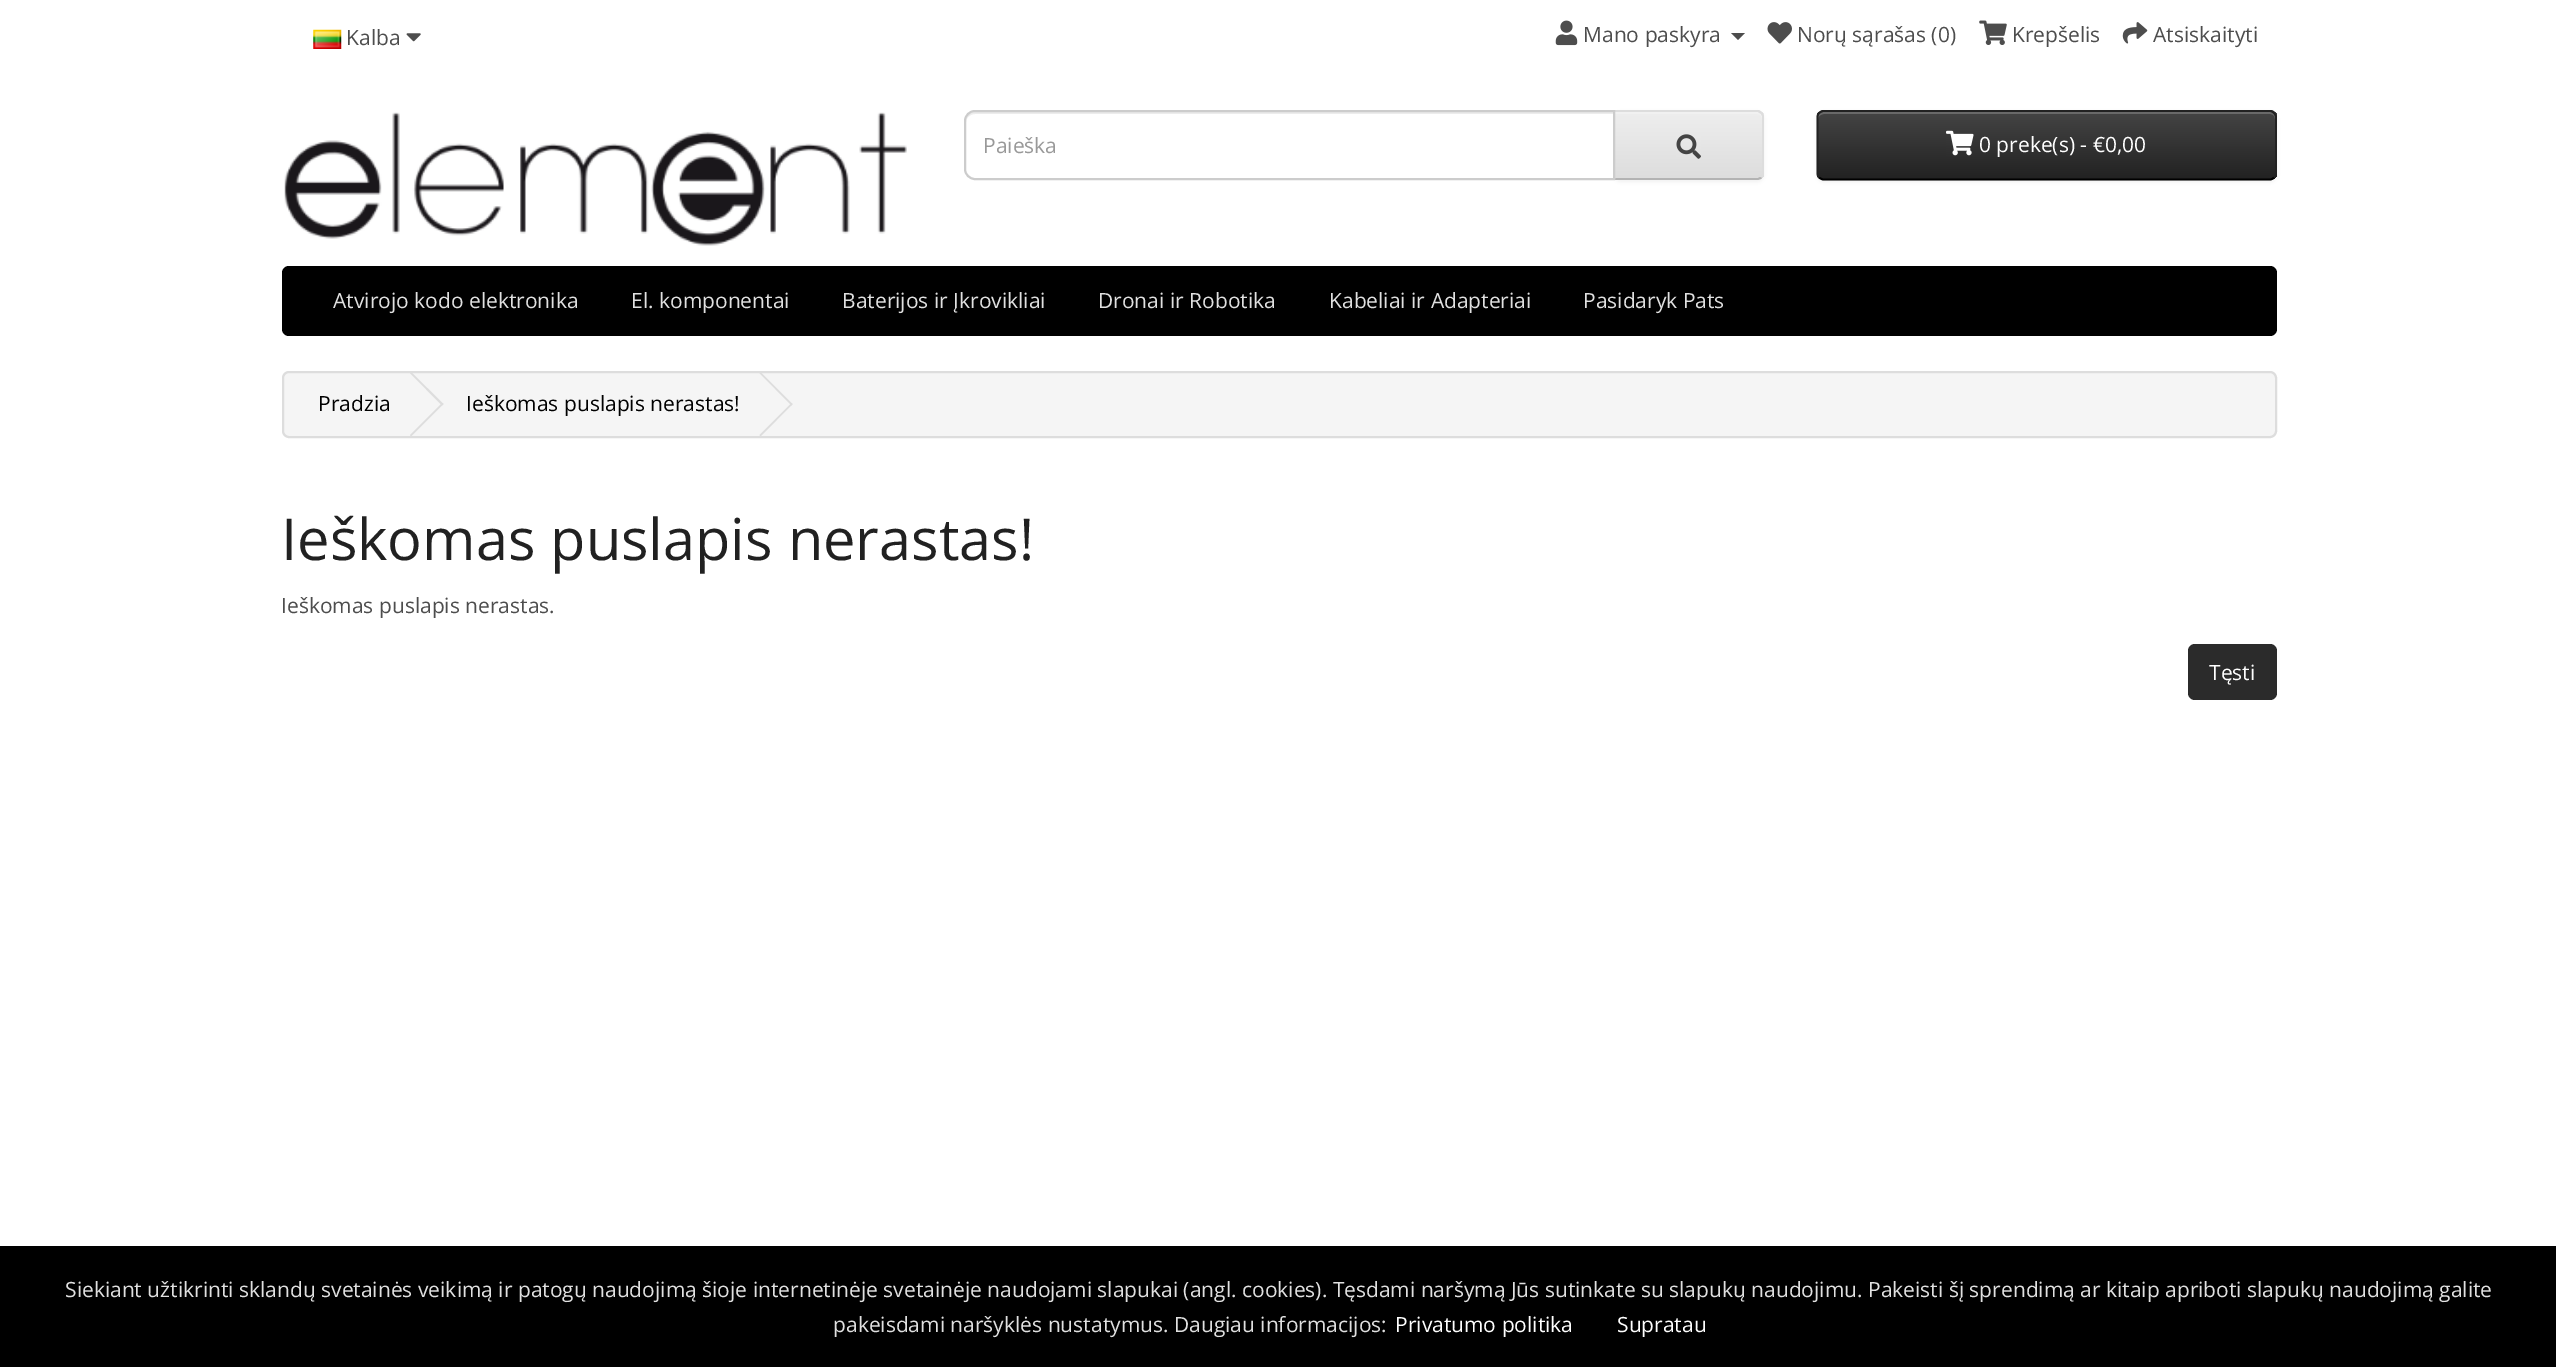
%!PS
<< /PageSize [2556 1367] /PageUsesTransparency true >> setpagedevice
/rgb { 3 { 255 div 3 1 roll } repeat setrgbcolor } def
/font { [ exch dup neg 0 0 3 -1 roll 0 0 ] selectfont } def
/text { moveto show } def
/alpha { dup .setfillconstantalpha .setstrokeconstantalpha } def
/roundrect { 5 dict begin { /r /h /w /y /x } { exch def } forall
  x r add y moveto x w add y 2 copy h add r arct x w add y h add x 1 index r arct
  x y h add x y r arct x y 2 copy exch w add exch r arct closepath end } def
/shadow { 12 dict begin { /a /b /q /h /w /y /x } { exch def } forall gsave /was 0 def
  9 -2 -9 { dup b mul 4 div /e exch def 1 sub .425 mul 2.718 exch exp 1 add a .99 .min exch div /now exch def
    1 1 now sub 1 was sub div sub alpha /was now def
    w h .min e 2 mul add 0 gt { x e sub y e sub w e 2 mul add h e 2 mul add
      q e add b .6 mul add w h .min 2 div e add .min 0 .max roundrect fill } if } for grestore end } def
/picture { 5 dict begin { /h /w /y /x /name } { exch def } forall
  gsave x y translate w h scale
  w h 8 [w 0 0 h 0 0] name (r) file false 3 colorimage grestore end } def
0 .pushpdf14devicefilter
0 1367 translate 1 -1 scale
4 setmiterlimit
255 255 255 rgb
0 0 2556 1367 rectfill
(img_01.rgb) 313 29 29 20 picture
(img_02.rgb) 406 33 15 9 picture
(img_03.rgb) 1555 20 23 26 picture
77 77 77 rgb
1731 33 moveto 14 0 rlineto -7 7 rlineto closepath fill
(img_04.rgb) 1767 22 25 22 picture
(img_05.rgb) 1979 20 28 25 picture
(img_06.rgb) 2122 22 26 22 picture
(img_07.rgb) 284 112 623 134 picture
0 0 0 rgb
1614 112 150 70 7 2 0.05 shadow
gsave
1614 110 moveto 143 0 rlineto 4 0 7 3 7 7 rcurveto 0 56 rlineto 0 4 -3 7 -7 7 rcurveto -143 0 rlineto closepath clip newpath
gsave 1615 112 moveto 149 0 rlineto 0 67 rlineto -149 0 rlineto closepath clip newpath
<< /ShadingType 2 /ColorSpace /DeviceRGB /Coords [1689 112 1689 179] /Extend [true true] /Function << /FunctionType 2 /Domain [0 1] /C0 [0.933 0.933 0.933] /C1 [0.867 0.867 0.867] /N 1 >> >> shfill grestore
grestore
241 241 241 rgb
1615 114 moveto 142 0 rlineto 3 0 5 2 5 5 rcurveto 0 -2 rlineto 0 -3 -2 -5 -5 -5 rcurveto -142 0 rlineto closepath fill
221 221 221 rgb
1614 111 moveto 0 -1 rlineto 145 0 rlineto 3 2 rlineto -1 2 rlineto -3 -2 rlineto -143 0 rlineto closepath fill
1764 173 moveto 0 -56 rlineto 0 -2 -1 -4 -2 -5 rcurveto -1 2 rlineto 1 2 rlineto 0 58 rlineto -2 3 rlineto 2 1 rlineto 1 -1 2 -3 2 -5 rcurveto closepath fill
179 179 179 rgb
1762 178 moveto -1 1 -3 2 -5 2 rcurveto -143 0 rlineto 2 -2 rlineto 142 0 rlineto 2 -1 rlineto closepath fill
183 183 183 rgb
1615 112 moveto 0 66 rlineto 1 0 rlineto -2 2 rlineto 0 -69 rlineto closepath fill
255 255 255 rgb
975 110 moveto 640 0 rlineto 0 70 rlineto -640 0 rlineto -6 0 -11 -5 -11 -11 rcurveto 0 -48 rlineto 0 -6 5 -11 11 -11 rcurveto closepath fill
236 236 236 rgb
975 114 moveto 639 0 rlineto 0 -2 rlineto -639 0 rlineto -6 0 -9 5 -9 10 rcurveto 0 -4 4 -8 9 -8 rcurveto closepath fill
204 204 204 rgb
2 setlinewidth
975 111 moveto 639 0 rlineto 0 68 rlineto -639 0 rlineto -5.5 0 -10 -4.5 -10 -10 rcurveto 0 -48 rlineto 0 -5.5 4.5 -10 10 -10 rcurveto closepath stroke
(img_08.rgb) 1676 134 25 25 picture
0 0 0 rgb
1817 112 460 70 7 2 0.05 shadow
54 54 54 rgb
1817 110 460 70 7 roundrect fill
gsave
1817 110 460 70 7 roundrect clip newpath
gsave 1817 112 moveto 460 0 rlineto 0 67 rlineto -460 0 rlineto closepath clip newpath
<< /ShadingType 2 /ColorSpace /DeviceRGB /Coords [2047 112 2047 179] /Extend [true true] /Function << /FunctionType 2 /Domain [0 1] /C0 [0.267 0.267 0.267] /C1 [0.133 0.133 0.133] /N 1 >> >> shfill grestore
grestore
105 105 105 rgb
1824 114 moveto 446 0 rlineto 3 0 5 2 5 5 rcurveto 0 -3 -1 -7 -5 -7 rcurveto -447 0 rlineto -4 0 -5 4 -5 7 rcurveto 0 -3 3 -5 6 -5 rcurveto closepath fill
0 0 0 rgb
1.8 setlinewidth
2274 177.5 moveto -1 1 -2.5 2 -4 2 rcurveto -446.5 0 rlineto -1.5 0 -3 -1 -4.5 -2 rcurveto stroke
34 34 34 rgb
1819 177.5 moveto -1 -1 -1.5 -2.5 -1.5 -4.5 rcurveto 0 -56 rlineto 0 -1.5 0.5 -3 1.5 -4 rcurveto 1.5 -1 3 -2 4.5 -2 rcurveto 446.5 0 rlineto 1.5 0 3 1 4 2 rcurveto 1 1 2 2.5 2 4 rcurveto 0 56 rlineto 0 2 -1 3.5 -2 4.5 rcurveto stroke
(img_09.rgb) 1946 130 28 26 picture
0 0 0 rgb
282 266 1995 70 7 roundrect fill
245 245 245 rgb
283 372 1993 65 6 roundrect gsave fill grestore
221 221 221 rgb
2 setlinewidth
stroke
410 373 moveto 1 -1 rlineto 32.5 32 rlineto -1.5 1.5 rlineto closepath fill
410 435 moveto 32 -32 rlineto 1.5 1 rlineto -32.5 32.5 rlineto closepath fill
759.5 373 moveto 1 -1 rlineto 32 32 rlineto -1 1.5 rlineto closepath fill
759.5 435 moveto 32 -32 rlineto 1 1 rlineto -32 32.5 rlineto closepath fill
43 43 43 rgb
2188 644 89 56 7 roundrect fill
0 0 0 rgb
0 1246 2556 121 rectfill
/OpenSans-Regular 21 font
77 77 77 rgb
(Kalba) 346 45 text
(Mano paskyra) 1583 42 text
(Norų sąrašas \(0\)) 1797 42 text
(Krepšelis) 2012 42 text
(Atsiskaityti) 2153 42 text
153 153 153 rgb
(Paieška) 983 153 text
255 255 255 rgb
(0 preke\(s\) - €0,00) 1979 152 text
224 224 224 rgb
(Atvirojo kodo elektronika) 333 308 text
(El. komponentai) 631 308 text
(Baterijos ir Įkrovikliai) 842 308 text
(Dronai ir Robotika) 1098 308 text
(Kabeliai ir Adapteriai) 1329 308 text
(Pasidaryk Pats) 1583 308 text
0 0 0 rgb
(Pradzia) 318 411 text
(Ieškomas puslapis nerastas!) 466 411 text
/OpenSans-Regular 57.75 font
33 33 33 rgb
(Ieškomas puslapis nerastas!) 281 560 text
/OpenSans-Regular 21 font
77 77 77 rgb
(Ieškomas puslapis nerastas.) 281 613 text
255 255 255 rgb
(Tęsti) 2209 680 text
224 224 224 rgb
(Siekiant užtikrinti sklandų svetainės veikimą ir patogų naudojimą šioje internetinėje svetainėje naudojami slapukai \(angl. cookies\). Tęsdami naršymą Jūs sutinkate su slapukų naudojimu. Pakeisti šį sprendimą ar kitaip apriboti slapukų naudojimą galite) 65 1297 text
(pakeisdami naršyklės nustatymus. Daugiau informacijos:) 833 1332 text
255 255 255 rgb
(Privatumo politika) 1395 1332 text
0 0 0 rgb
1608 1300 107 48 5 roundrect fill
255 255 255 rgb
(Supratau) 1617 1332 text
.poppdf14devicefilter showpage
